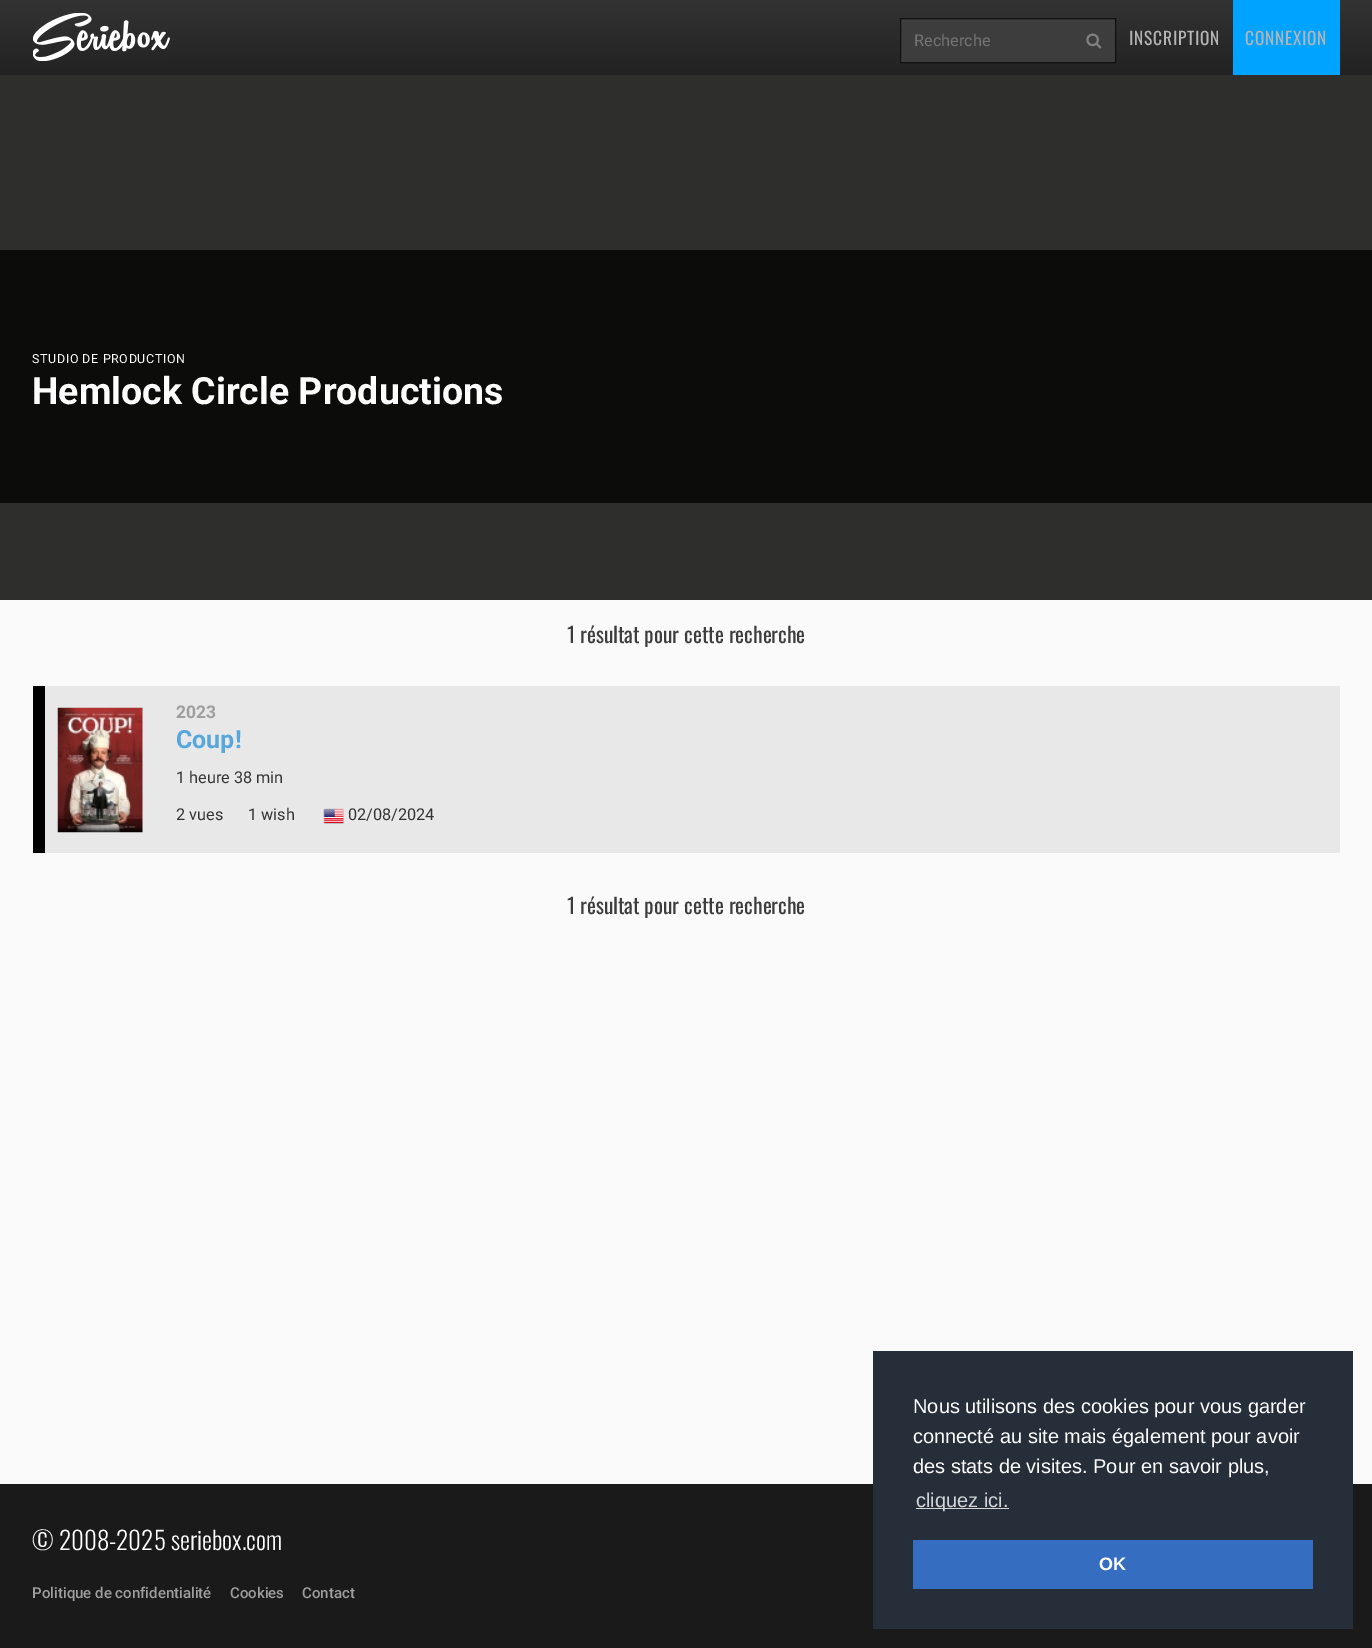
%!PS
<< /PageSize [1372 1648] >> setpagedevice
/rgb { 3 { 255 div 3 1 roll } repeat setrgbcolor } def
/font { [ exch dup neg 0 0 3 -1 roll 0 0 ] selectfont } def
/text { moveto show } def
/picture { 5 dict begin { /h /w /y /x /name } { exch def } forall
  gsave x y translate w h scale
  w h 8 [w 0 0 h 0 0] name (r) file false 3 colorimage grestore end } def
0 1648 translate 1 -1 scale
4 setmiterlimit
250 250 250 rgb
0 0 1372 1648 rectfill
gsave 0 0 moveto 1372 0 rlineto 0 75 rlineto -1372 0 rlineto closepath clip newpath
<< /ShadingType 2 /ColorSpace /DeviceRGB /Coords [686 0 686 75] /Extend [true true] /Function << /FunctionType 2 /Domain [0 1] /C0 [0.2 0.2 0.2] /C1 [0.133 0.133 0.133] /N 1 >> >> shfill grestore
(img_01.rgb) 33 13 137 48 picture
61 61 61 rgb
900.5 18.5 moveto 215 0 rlineto 0 44 rlineto -215 0 rlineto closepath gsave fill grestore
17 17 17 rgb
stroke
(img_02.rgb) 1086 33 16 16 picture
0 163 255 rgb
1233 0 107 75 rectfill
46 46 45 rgb
0 75 1372 525 rectfill
12 12 11 rgb
0 250 1372 253 rectfill
232 232 232 rgb
45 686 1295 167 rectfill
0 0 0 rgb
33 686 12 167 rectfill
(img_03.rgb) 57 707 86 126 picture
(img_04.rgb) 323 808 21 16 picture
26 26 26 rgb
0 1484 1372 164 rectfill
37 46 57 rgb
873 1351 480 278 rectfill
211 213 215 rgb
916 1508 93 1 rectfill
53 110 193 rgb
913 1540 400 49 rectfill
/Roboto-Regular 16.25 font
117 117 117 rgb
(Recherche) 914 46 text
/Oswald-Regular 17.5 font
180 180 180 rgb
1129 45 moveto 0.75 0 (INSCRIPTION) ashow
1245 45 moveto 0.75 0 (CONNEXION) ashow
/Roboto-Regular 12.5 font
255 255 255 rgb
32 363 moveto 0.6 0 (STUDIO DE PRODUCTION) ashow
/Roboto-Bold 37.5 font
(Hemlock Circle Productions) 32 404 text
/Oswald-Regular 21.25 font
61 61 61 rgb
(1 résultat pour cette recherche) 567 643 text
/Roboto-Bold 17.5 font
158 158 158 rgb
(2023) 176 718 text
gsave
176 725 1164 28 rectclip
/Roboto-Bold 25 font
88 167 220 rgb
(Coup!) 176 748 text
grestore
/Roboto-Regular 16.25 font
51 51 51 rgb
(1 heure 38 min) 176 783 text
(2 vues) 176 820 text
(1 wish) 248 820 text
(02/08/2024) 348 820 text
/Oswald-Regular 21.25 font
61 61 61 rgb
(1 résultat pour cette recherche) 567 914 text
/Oswald-Light 25 font
255 255 255 rgb
(© 2008-2025 seriebox.com) 32 1550 text
/Roboto-Medium 15 font
158 158 158 rgb
(Politique de confidentialité) 32 1598 text
(Cookies) 230 1598 text
(Contact) 302 1598 text
/LiberationSans-Regular 20 font
255 255 255 rgb
(Nous utilisons des cookies pour vous garder) 913 1413 text
(connecté au site mais également pour avoir) 913 1443 text
(des stats de visites. Pour en savoir plus,) 913 1473 text
211 213 215 rgb
(cliquez ici.) 916 1507 text
/LiberationSans-Bold 18 font
255 255 255 rgb
(OK) 1099 1570 text
showpage
